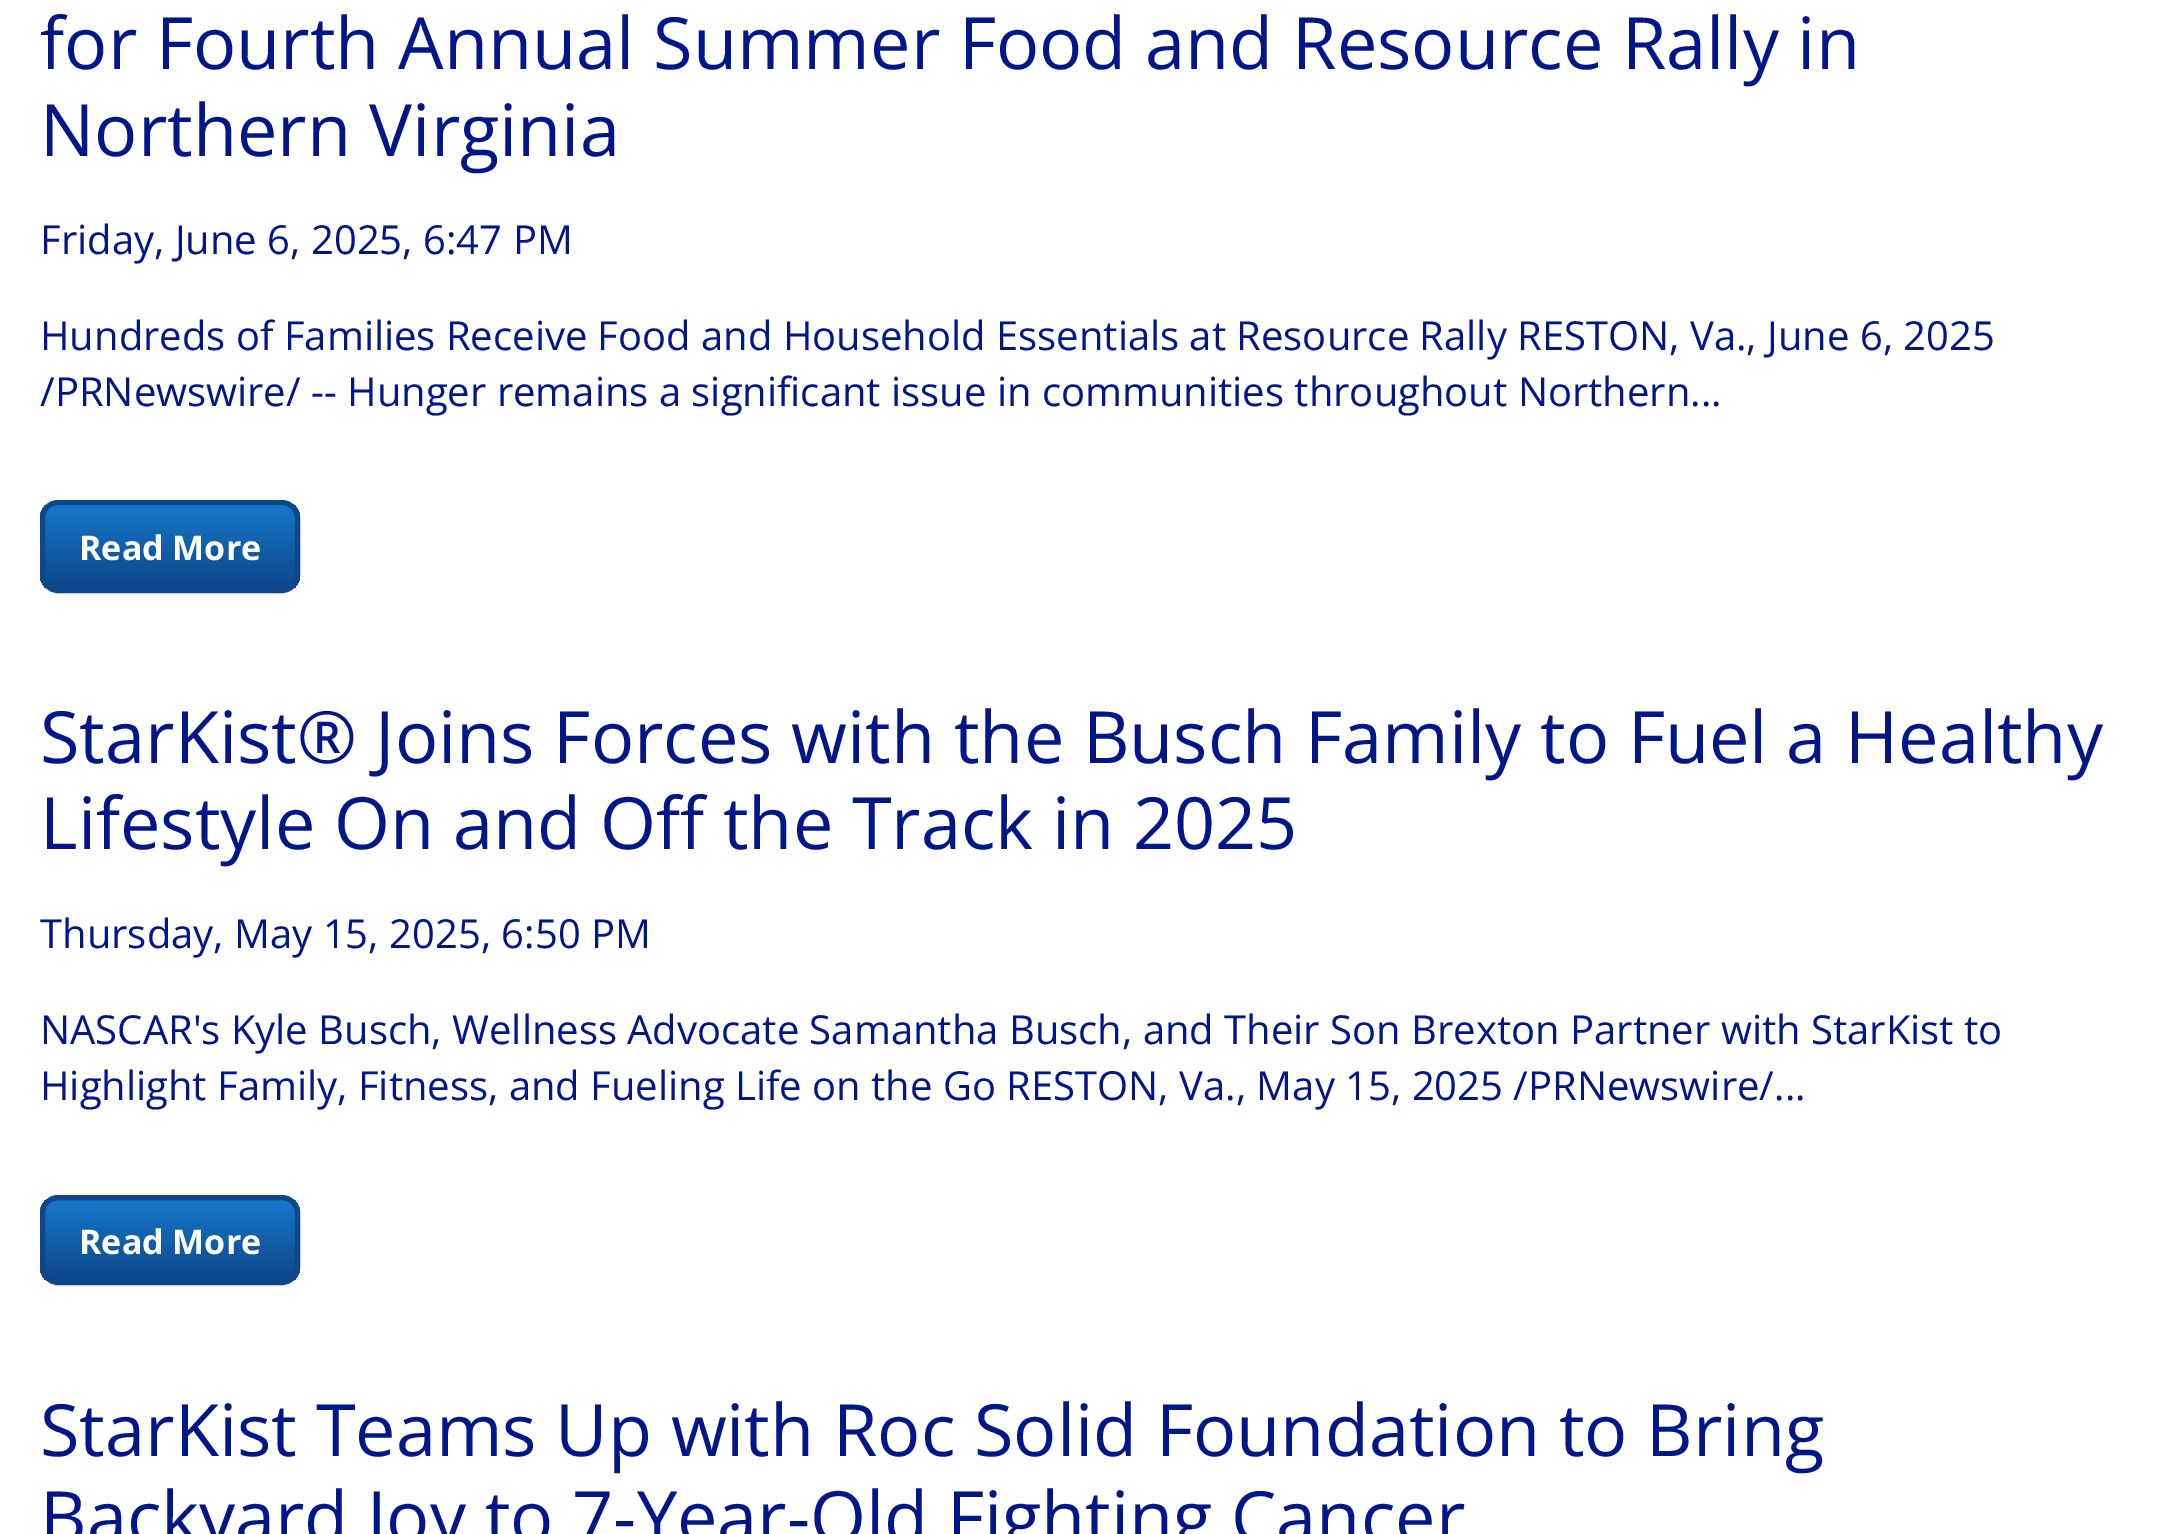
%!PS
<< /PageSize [2179 1534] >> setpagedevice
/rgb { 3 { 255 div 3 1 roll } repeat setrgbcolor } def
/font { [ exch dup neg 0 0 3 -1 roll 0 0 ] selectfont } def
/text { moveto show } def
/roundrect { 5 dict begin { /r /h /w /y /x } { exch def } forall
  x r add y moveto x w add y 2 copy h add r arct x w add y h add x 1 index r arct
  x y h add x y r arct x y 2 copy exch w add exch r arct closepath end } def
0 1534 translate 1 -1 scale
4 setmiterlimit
255 255 255 rgb
0 0 2179 1534 rectfill
gsave
40 500 260 93 18 roundrect clip newpath
gsave 40 505 moveto 260 0 rlineto 0 83 rlineto -260 0 rlineto closepath clip newpath
<< /ShadingType 2 /ColorSpace /DeviceRGB /Coords [170 505 170 588] /Extend [true true] /Function << /FunctionType 2 /Domain [0 1] /C0 [0.09 0.467 0.8] /C1 [0.051 0.278 0.529] /N 1 >> >> shfill grestore
grestore
13 71 135 rgb
5 setlinewidth
42.5 502.5 255 88 15.5 roundrect stroke
gsave
40 1195 260 90 18 roundrect clip newpath
gsave 40 1200 moveto 260 0 rlineto 0 80 rlineto -260 0 rlineto closepath clip newpath
<< /ShadingType 2 /ColorSpace /DeviceRGB /Coords [170 1200 170 1280] /Extend [true true] /Function << /FunctionType 2 /Domain [0 1] /C0 [0.09 0.467 0.8] /C1 [0.051 0.278 0.529] /N 1 >> >> shfill grestore
grestore
42.5 1197.5 255 85 15.5 roundrect stroke
/OpenSans-Regular 72 font
0 22 137 rgb
(for Fourth Annual Summer Food and Resource Rally in) 40 69 text
(Northern Virginia) 40 156 text
/OpenSans-Regular 40 font
(Friday, June 6, 2025, 6:47 PM) 40 254 text
(Hundreds of Families Receive Food and Household Essentials at Resource Rally RESTON, Va., June 6, 2025) 40 350 text
(/PRNewswire/ -- Hunger remains a significant issue in communities throughout Northern...) 40 406 text
/OpenSans-Bold 34 font
255 255 255 rgb
(Read More) 79 560 text
/OpenSans-Regular 72 font
0 22 137 rgb
(StarKist® Joins Forces with the Busch Family to Fuel a Healthy) 40 763 text
(Lifestyle On and Off the Track in 2025) 40 849 text
/OpenSans-Regular 40 font
(Thursday, May 15, 2025, 6:50 PM) 40 948 text
(NASCAR's Kyle Busch, Wellness Advocate Samantha Busch, and Their Son Brexton Partner with StarKist to) 40 1044 text
(Highlight Family, Fitness, and Fueling Life on the Go RESTON, Va., May 15, 2025 /PRNewswire/...) 40 1100 text
/OpenSans-Bold 34 font
255 255 255 rgb
(Read More) 79 1254 text
/OpenSans-Regular 72 font
0 22 137 rgb
(StarKist Teams Up with Roc Solid Foundation to Bring) 40 1456 text
(Backyard Joy to 7-Year-Old Fighting Cancer) 40 1543 text
showpage
